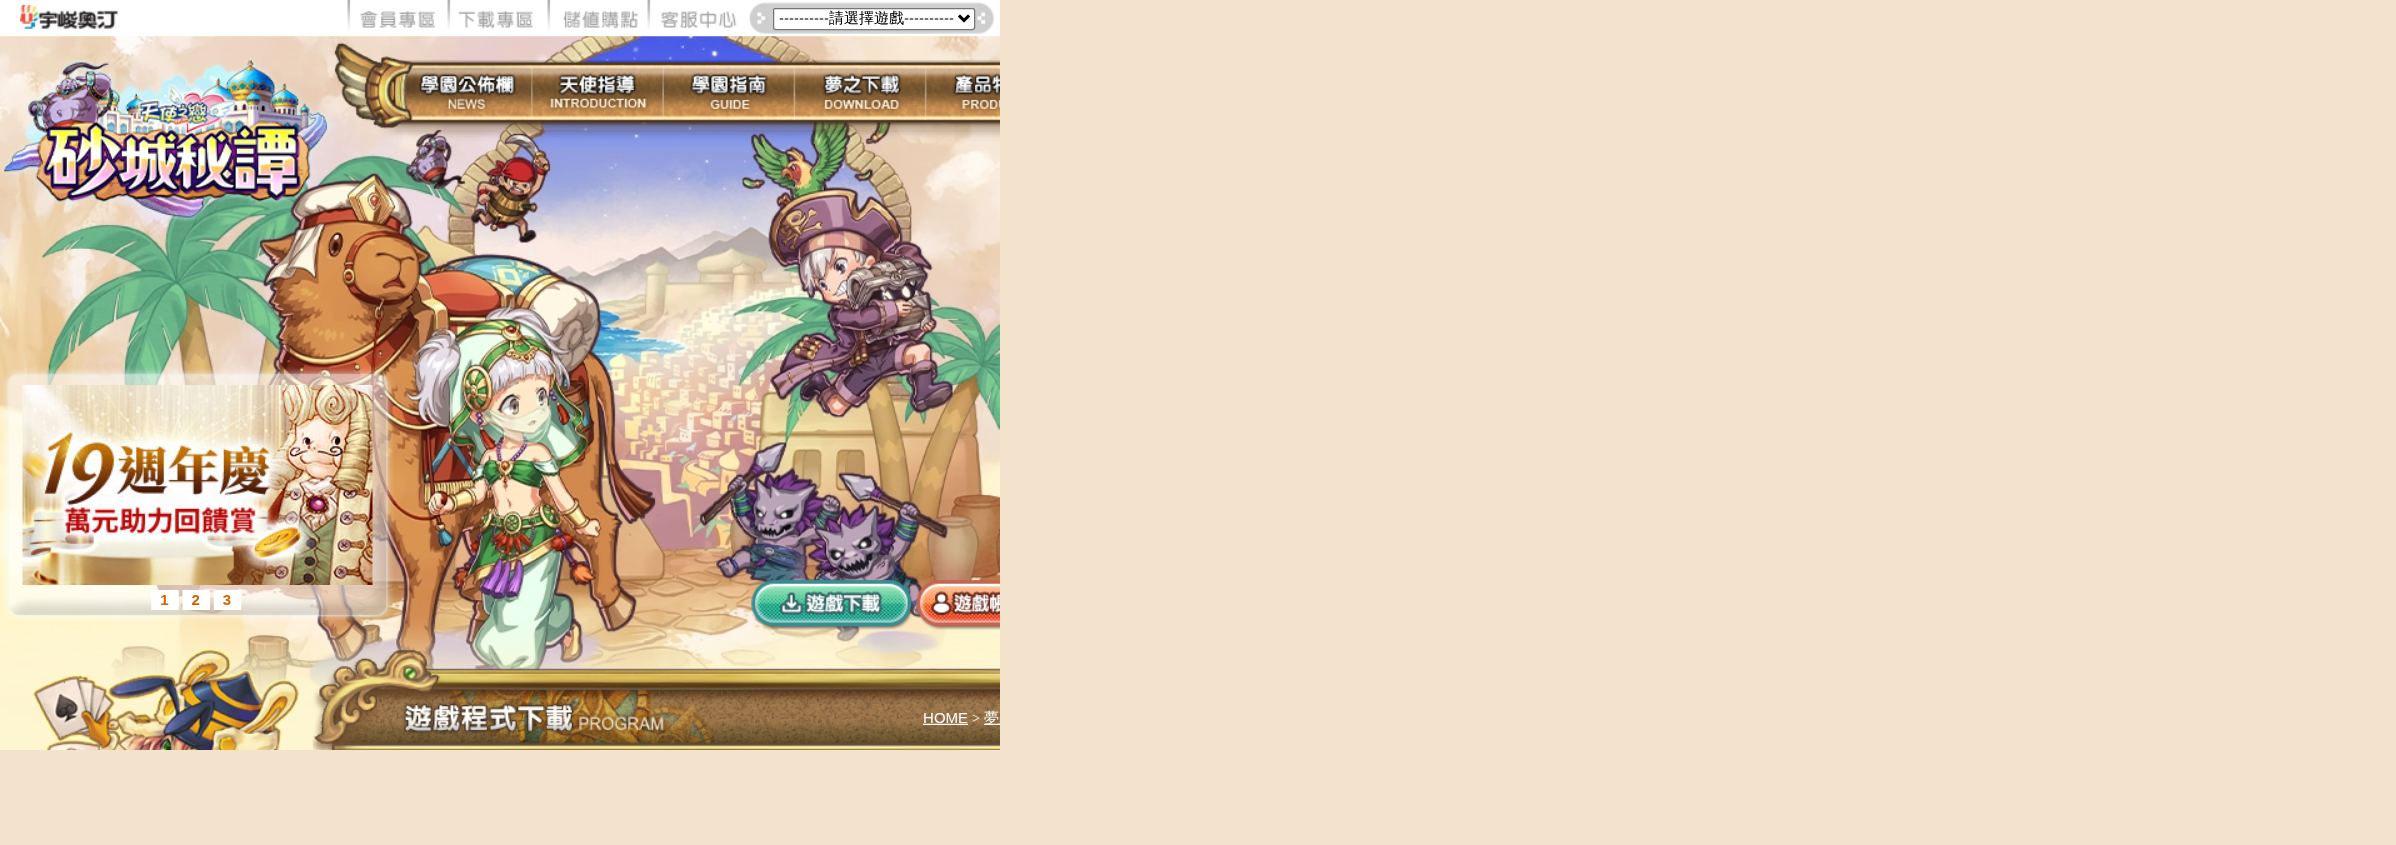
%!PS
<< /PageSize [2396 845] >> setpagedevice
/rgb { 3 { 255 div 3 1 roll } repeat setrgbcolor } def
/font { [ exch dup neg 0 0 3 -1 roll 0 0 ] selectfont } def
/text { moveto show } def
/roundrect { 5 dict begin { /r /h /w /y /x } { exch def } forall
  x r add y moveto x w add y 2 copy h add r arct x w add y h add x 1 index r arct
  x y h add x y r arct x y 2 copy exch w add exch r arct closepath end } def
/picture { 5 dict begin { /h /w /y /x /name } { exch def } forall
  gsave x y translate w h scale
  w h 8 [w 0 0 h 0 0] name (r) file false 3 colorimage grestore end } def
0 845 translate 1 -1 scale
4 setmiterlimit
244 227 204 rgb
0 0 2396 845 rectfill
254 246 209 rgb
0 36 1000 714 rectfill
255 255 255 rgb
136 0 864 36 rectfill
(img_01.rgb) 0 0 136 37 picture
(img_02.rgb) 347 0 101 37 picture
(img_03.rgb) 447 0 101 37 picture
(img_04.rgb) 547 0 101 37 picture
(img_06.rgb) 747 2 253 35 picture
(img_05.rgb) 647 0 101 37 picture
773.5 8.5 201 21 2 roundrect gsave fill grestore
118 118 118 rgb
stroke
0 0 0 rgb
2.5 setlinewidth
959 15.5 moveto 5 5 rlineto 5 -5 rlineto stroke
(img_07.rgb) 0 36 1000 681 picture
(img_08.rgb) 2 42 998 588 picture
(img_09.rgb) 2 367 392 256 picture
(img_10.rgb) 31 648 269 102 picture
(img_11.rgb) 312 649 688 101 picture
/LiberationSans-Regular 15 font
(----------) 779 23 text
/WenQuanYiZenHei-Medium 15 font
(請選擇遊戲) 829 23 text
/LiberationSans-Regular 15 font
(----------) 904 23 text
showpage
